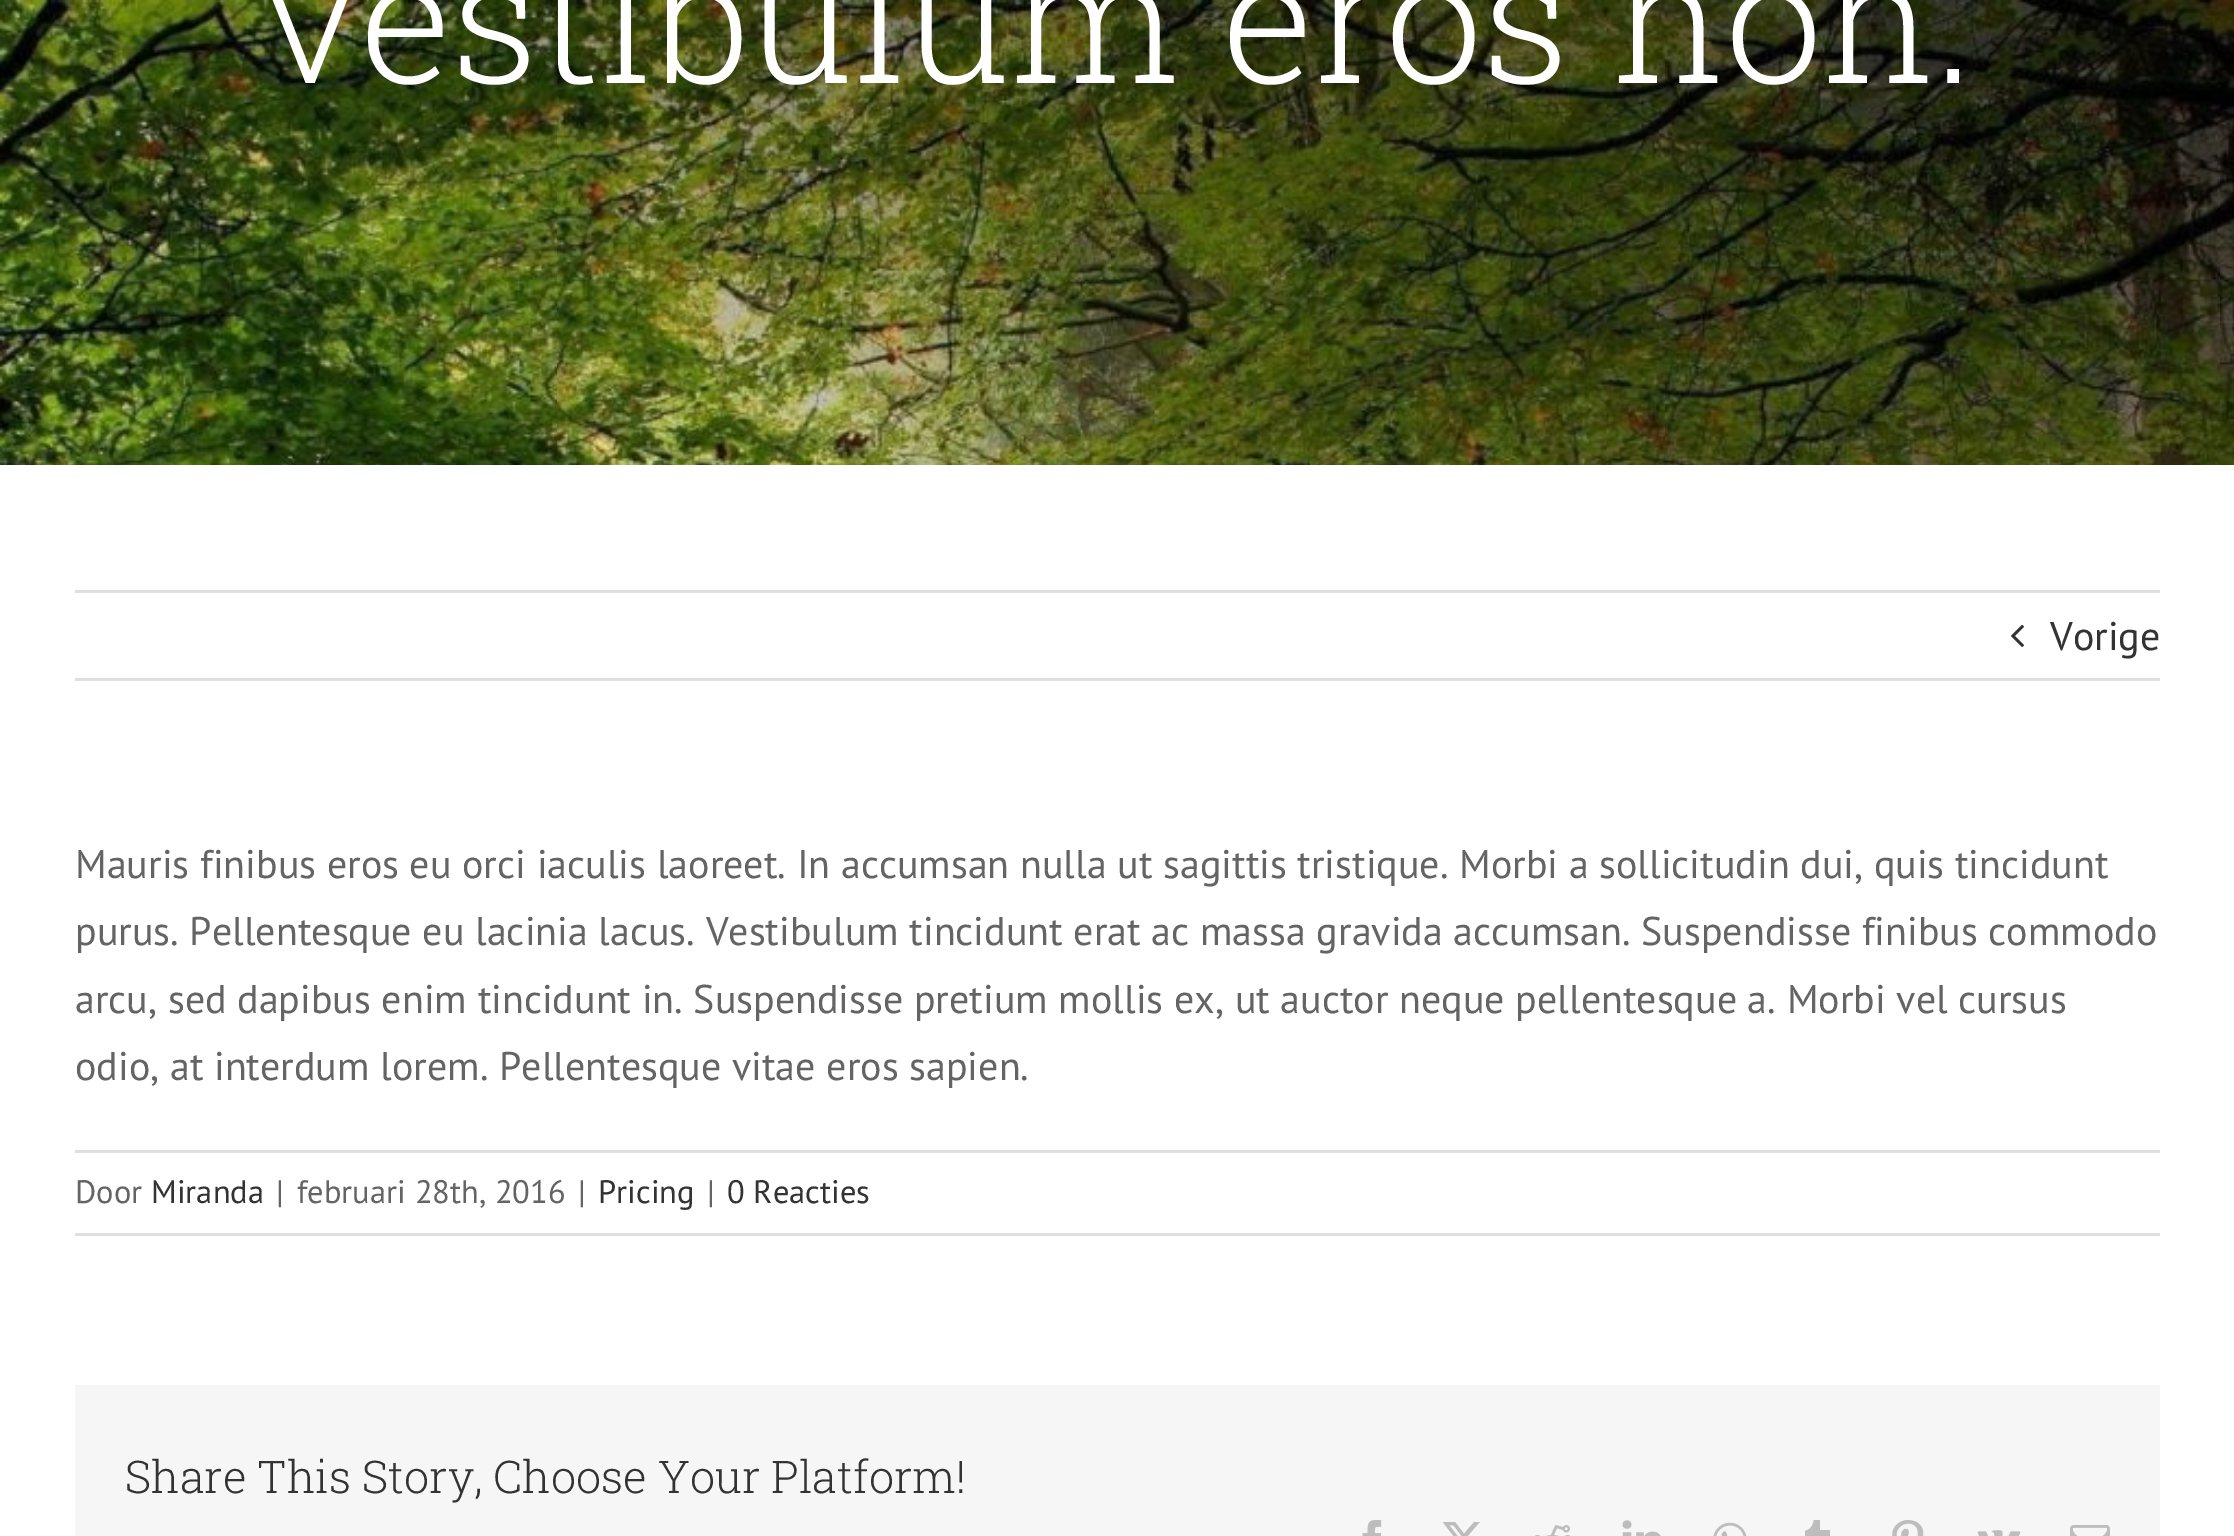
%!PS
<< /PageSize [2234 1536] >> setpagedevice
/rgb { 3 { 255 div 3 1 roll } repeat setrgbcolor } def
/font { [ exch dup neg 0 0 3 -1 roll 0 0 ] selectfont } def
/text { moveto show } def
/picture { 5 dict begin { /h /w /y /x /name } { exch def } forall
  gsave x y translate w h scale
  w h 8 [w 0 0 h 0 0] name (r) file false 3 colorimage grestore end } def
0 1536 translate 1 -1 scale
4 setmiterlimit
255 255 255 rgb
0 0 2234 1536 rectfill
(img_01.rgb) 0 0 2234 465 picture
224 222 222 rgb
75 590 2085 3 rectfill
75 678 2085 3 rectfill
(img_02.rgb) 2011 624 13 23 picture
75 1150 2085 3 rectfill
75 1233 2085 3 rectfill
246 246 246 rgb
75 1385 2085 151 rectfill
(img_03.rgb) 1362 1520 20 16 picture
(img_04.rgb) 1442 1522 38 14 picture
(img_05.rgb) 1534 1525 37 11 picture
(img_06.rgb) 1622 1520 39 16 picture
(img_07.rgb) 1713 1522 34 14 picture
(img_08.rgb) 1805 1520 25 16 picture
(img_09.rgb) 1892 1520 32 16 picture
(img_10.rgb) 1977 1530 44 6 picture
(img_11.rgb) 2070 1525 40 11 picture
/RobotoSlab-Light 175 font
255 255 255 rgb
(vestibulum eros non.) 260 83 text
/PTSans-Regular 40 font
51 51 51 rgb
(Vorige) 2050 650 text
100 100 100 rgb
(Mauris finibus eros eu orci iaculis laoreet. In accumsan nulla ut sagittis tristique. Morbi a sollicitudin dui, quis tincidunt) 75 878 text
(purus. Pellentesque eu lacinia lacus. Vestibulum tincidunt erat ac massa gravida accumsan. Suspendisse finibus commodo) 75 945 text
(arcu, sed dapibus enim tincidunt in. Suspendisse pretium mollis ex, ut auctor neque pellentesque a. Morbi vel cursus) 75 1013 text
(odio, at interdum lorem. Pellentesque vitae eros sapien.) 75 1080 text
/PTSans-Regular 32.5 font
(Door) 75 1203 text
51 51 51 rgb
(Miranda) 151 1203 text
100 100 100 rgb
(|) 276 1203 text
(februari 28th, 2016) 297 1203 text
(|) 578 1203 text
51 51 51 rgb
(Pricing) 598 1203 text
100 100 100 rgb
(|) 707 1203 text
51 51 51 rgb
(0 Reacties) 727 1203 text
/RobotoSlab-Light 45 font
(Share This Story, Choose Your Platform!) 125 1493 text
showpage
